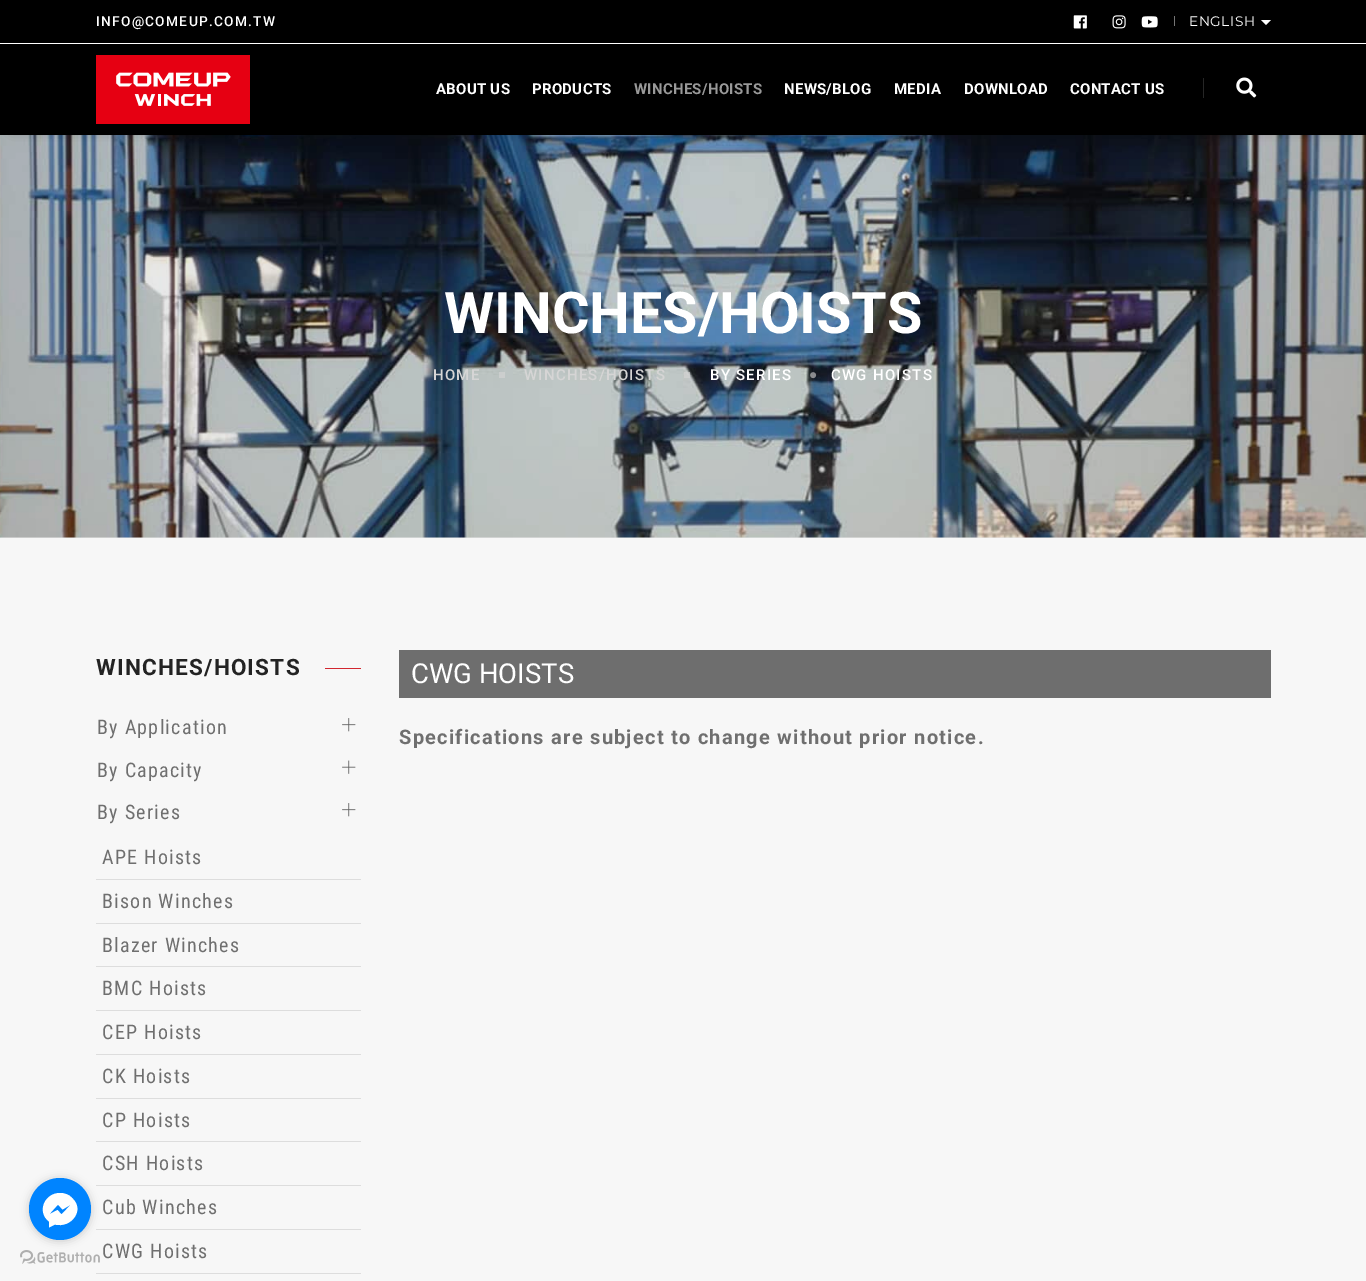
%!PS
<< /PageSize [1366 1281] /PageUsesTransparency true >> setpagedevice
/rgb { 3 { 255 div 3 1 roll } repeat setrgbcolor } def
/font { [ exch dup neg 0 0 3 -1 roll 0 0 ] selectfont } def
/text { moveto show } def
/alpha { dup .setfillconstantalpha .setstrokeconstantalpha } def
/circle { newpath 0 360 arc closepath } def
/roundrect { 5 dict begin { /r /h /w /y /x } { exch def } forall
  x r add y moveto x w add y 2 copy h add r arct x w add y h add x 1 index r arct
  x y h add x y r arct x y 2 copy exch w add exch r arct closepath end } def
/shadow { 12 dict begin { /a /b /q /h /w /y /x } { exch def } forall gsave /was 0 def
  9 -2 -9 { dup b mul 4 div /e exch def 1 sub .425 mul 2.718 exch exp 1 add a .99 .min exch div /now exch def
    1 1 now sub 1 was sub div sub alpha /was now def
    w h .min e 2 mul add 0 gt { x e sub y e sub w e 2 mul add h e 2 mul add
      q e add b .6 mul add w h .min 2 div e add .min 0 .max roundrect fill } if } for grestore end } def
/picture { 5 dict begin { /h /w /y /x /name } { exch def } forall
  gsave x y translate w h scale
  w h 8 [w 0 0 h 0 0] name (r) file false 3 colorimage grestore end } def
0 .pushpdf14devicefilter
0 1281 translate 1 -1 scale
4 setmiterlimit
255 255 255 rgb
0 0 1366 1281 rectfill
232 232 232 rgb
0 537 1366 1 rectfill
(img_07.rgb) 0 135 1366 403 picture
0 0 0 rgb
13 61 1341 67 0 6 0.6 shadow
0 0 1366 43 rectfill
(img_01.rgb) 1073 15 14 14 picture
(img_02.rgb) 1112 15 14 14 picture
(img_03.rgb) 1141 16 17 12 picture
117 117 117 rgb
1174 16 1 10 rectfill
255 255 255 rgb
1261 20 moveto 10 0 rlineto -5 5 rlineto closepath fill
0 0 0 rgb
0 44 1366 91 rectfill
(img_04.rgb) 96 55 154 69 picture
38 38 38 rgb
1203 78 1 20 rectfill
(img_05.rgb) 1236 77 21 21 picture
247 247 247 rgb
0 538 1366 743 rectfill
(img_06.rgb) 20 1250 80 14 picture
221 221 221 rgb
96 1185 265 1 rectfill
96 1229 265 1 rectfill
136 136 136 rgb
29 1179 62 62 31 4.5 0.4 shadow
0 132 255 rgb
60 1209 31 circle fill
255 255 255 rgb
60 1193 moveto -15.5 0 -23.5 19 -11 28.5 rcurveto 0 6 rlineto 6 -3 rlineto 16 4 30.5 -14.5 17 -26.5 rcurveto -3 -3.5 -7.5 -5 -12 -5 rcurveto closepath 61.5 1214.5 moveto -4 -4.5 rlineto -8.5 4.5 rlineto 9 -10 rlineto 4.5 5 rlineto 8.5 -5 rlineto closepath fill
0.6 alpha
214 213 213 rgb
499 372 6 6 rectfill
684 372 6 6 rectfill
1 alpha
(img_08.rgb) 810 372 7 7 picture
210 39 48 rgb
325 668 36 1 rectfill
(img_09.rgb) 342 718 14 14 picture
(img_10.rgb) 342 760 14 14 picture
(img_09.rgb) 342 803 14 14 picture
221 221 221 rgb
96 879 265 1 rectfill
96 923 265 1 rectfill
96 966 265 1 rectfill
96 1010 265 1 rectfill
96 1054 265 1 rectfill
96 1098 265 1 rectfill
96 1141 265 1 rectfill
96 1273 265 1 rectfill
110 110 110 rgb
399 650 872 48 rectfill
/Roboto-Medium 13.75 font
255 255 255 rgb
96 26 moveto 1.25 0 (INFO@COMEUP.COM.TW) ashow
/Montserrat-Regular 13.75 font
1189 26 moveto 0.5 0 (ENGLISH) ashow
/Roboto-Bold 15 font
436 94 moveto 0.25 0 (ABOUT US) ashow
532 94 moveto 0.25 0 (PRODUCTS) ashow
153 153 153 rgb
634 94 moveto 0.25 0 (WINCHES/HOISTS) ashow
255 255 255 rgb
784 94 moveto 0.25 0 (NEWS/BLOG) ashow
894 94 moveto 0.25 0 (MEDIA) ashow
964 94 moveto 0.25 0 (DOWNLOAD) ashow
1070 94 moveto 0.25 0 (CONTACT US) ashow
/Roboto-Bold 57.5 font
(WINCHES/HOISTS) 444 333 text
/Roboto-Medium 15 font
214 213 213 rgb
433 380 moveto 1.25 0 (HOME) ashow
524 380 moveto 1.25 0 (WINCHES/HOISTS) ashow
255 255 255 rgb
710 380 moveto 1.25 0 (BY SERIES) ashow
831 380 moveto 1.25 0 (CWG HOISTS) ashow
/Roboto-Bold 22.5 font
35 35 35 rgb
96 675 moveto 1.25 0 (WINCHES/HOISTS) ashow
/RobotoCondensed-Regular 20 font
111 111 111 rgb
97 734 moveto 1.25 0 (By Application) ashow
97 777 moveto 1.25 0 (By Capacity) ashow
97 819 moveto 1.25 0 (By Series) ashow
102 864 moveto 1.25 0 (APE Hoists) ashow
102 908 moveto 1.25 0 (Bison Winches) ashow
102 952 moveto 1.25 0 (Blazer Winches) ashow
102 995 moveto 1.25 0 (BMC Hoists) ashow
102 1039 moveto 1.25 0 (CEP Hoists) ashow
102 1083 moveto 1.25 0 (CK Hoists) ashow
102 1127 moveto 1.25 0 (CP Hoists) ashow
102 1170 moveto 1.25 0 (CSH Hoists) ashow
102 1214 moveto 1.25 0 (Cub Winches) ashow
102 1258 moveto 1.25 0 (CWG Hoists) ashow
/Roboto-Regular 27.5 font
255 255 255 rgb
(CWG HOISTS) 411 683 text
/Roboto-Bold 20 font
111 111 111 rgb
399 744 moveto 1.25 0 (Specifications are subject to change without prior notice.) ashow
.poppdf14devicefilter showpage
